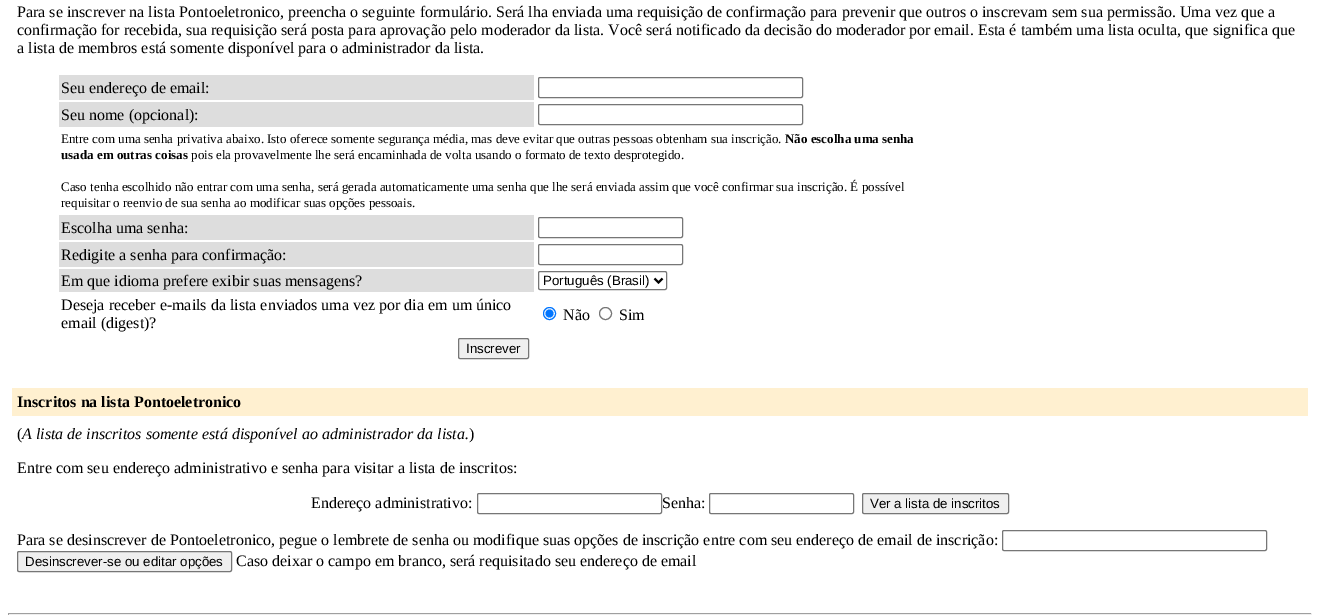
%!PS
<< /PageSize [1320 615] >> setpagedevice
/rgb { 3 { 255 div 3 1 roll } repeat setrgbcolor } def
/font { [ exch dup neg 0 0 3 -1 roll 0 0 ] selectfont } def
/text { moveto show } def
/circle { newpath 0 360 arc closepath } def
/roundrect { 5 dict begin { /r /h /w /y /x } { exch def } forall
  x r add y moveto x w add y 2 copy h add r arct x w add y h add x 1 index r arct
  x y h add x y r arct x y 2 copy exch w add exch r arct closepath end } def
0 615 translate 1 -1 scale
4 setmiterlimit
255 255 255 rgb
0 0 1320 615 rectfill
221 221 221 rgb
59 75 475 25 rectfill
118 118 118 rgb
538.5 77.5 264 20 1.5 roundrect stroke
221 221 221 rgb
59 102 475 25 rectfill
118 118 118 rgb
538.5 104.5 264 20 1.5 roundrect stroke
221 221 221 rgb
59 215 475 25 rectfill
118 118 118 rgb
538.5 217.5 144 20 1.5 roundrect stroke
221 221 221 rgb
59 242 475 25 rectfill
118 118 118 rgb
538.5 244.5 144 20 1.5 roundrect stroke
221 221 221 rgb
59 269 475 23 rectfill
118 118 118 rgb
538.5 271.5 128 18 1.5 roundrect stroke
0 0 0 rgb
2 setlinewidth
654.5 278.5 moveto 4 4 rlineto 4 -4 rlineto stroke
0 117 255 rgb
1 setlinewidth
549.5 313.5 6 circle stroke
549.5 313.5 4 circle fill
118 118 118 rgb
605.5 313.5 6 circle stroke
239 239 239 rgb
458.5 338.5 70 20 1.5 roundrect gsave fill grestore
118 118 118 rgb
stroke
255 240 208 rgb
12 388 1296 28 rectfill
118 118 118 rgb
477.5 493.5 184 20 1.5 roundrect stroke
709.5 493.5 144 20 1.5 roundrect stroke
239 239 239 rgb
862.5 493.5 146 20 1.5 roundrect gsave fill grestore
118 118 118 rgb
stroke
1002.5 530.5 264 20 1.5 roundrect stroke
239 239 239 rgb
17.5 551.5 214 20 1.5 roundrect gsave fill grestore
118 118 118 rgb
stroke
159 159 159 rgb
8 613 1304 1 rectfill
238 238 238 rgb
1311 613 1 2 rectfill
8 614 1304 1 rectfill
159 159 159 rgb
8 613 1 2 rectfill
/LiberationSerif-Regular 16 font
0 0 0 rgb
(Para se inscrever na lista Pontoeletronico, preencha o seguinte formulário. Será lha enviada uma requisição de confirmação para prevenir que outros o inscrevam sem sua permissão. Uma vez que a) 17 17 text
(confirmação for recebida, sua requisição será posta para aprovação pelo moderador da lista. Você será notificado da decisão do moderador por email. Esta é também uma lista oculta, que significa que) 17 35 text
(a lista de membros está somente disponível para o administrador da lista.) 17 53 text
(Seu endereço de email:) 61 93 text
(Seu nome \(opcional\):) 61 120 text
/LiberationSerif-Regular 13 font
(Entre com uma senha privativa abaixo. Isto oferece somente segurança média, mas deve evitar que outras pessoas obtenham sua inscrição.) 61 143 text
/LiberationSerif-Bold 13 font
(Não escolha uma senha) 785 143 text
(usada em outras coisas) 61 159 text
/LiberationSerif-Regular 13 font
(pois ela provavelmente lhe será encaminhada de volta usando o formato de texto desprotegido.) 191 159 text
(Caso tenha escolhido não entrar com uma senha, será gerada automaticamente uma senha que lhe será enviada assim que você confirmar sua inscrição. É possível) 61 191 text
(requisitar o reenvio de sua senha ao modificar suas opções pessoais.) 61 207 text
/LiberationSerif-Regular 16 font
(Escolha uma senha:) 61 233 text
(Redigite a senha para confirmação:) 61 260 text
(Em que idioma prefere exibir suas mensagens?) 61 286 text
/LiberationSans-Regular 13.3 font
(Português \(Brasil\)) 543 285 text
/LiberationSerif-Regular 16 font
(Deseja receber e-mails da lista enviados uma vez por dia em um único) 61 310 text
(email \(digest\)?) 61 328 text
(Não) 563 320 text
(Sim) 619 320 text
/LiberationSans-Regular 13.3 font
(Inscrever) 466 353 text
/LiberationSerif-Bold 16 font
(Inscritos na lista Pontoeletronico) 17 407 text
/LiberationSerif-Regular 16 font
(\() 17 439 text
/LiberationSerif-Italic 16 font
(A lista de inscritos somente está disponível ao administrador da lista.) 22 439 text
/LiberationSerif-Regular 16 font
(\)) 469 439 text
(Entre com seu endereço administrativo e senha para visitar a lista de inscritos:) 17 473 text
(Endereço administrativo:) 311 508 text
(Senha:) 662 508 text
/LiberationSans-Regular 13.3 font
(Ver a lista de inscritos) 870 508 text
/LiberationSerif-Regular 16 font
(Para se desinscrever de Pontoeletronico, pegue o lembrete de senha ou modifique suas opções de inscrição entre com seu endereço de email de inscrição:) 17 545 text
/LiberationSans-Regular 13.3 font
(Desinscrever-se ou editar opções) 25 566 text
/LiberationSerif-Regular 16 font
(Caso deixar o campo em branco, será requisitado seu endereço de email) 236 566 text
showpage
